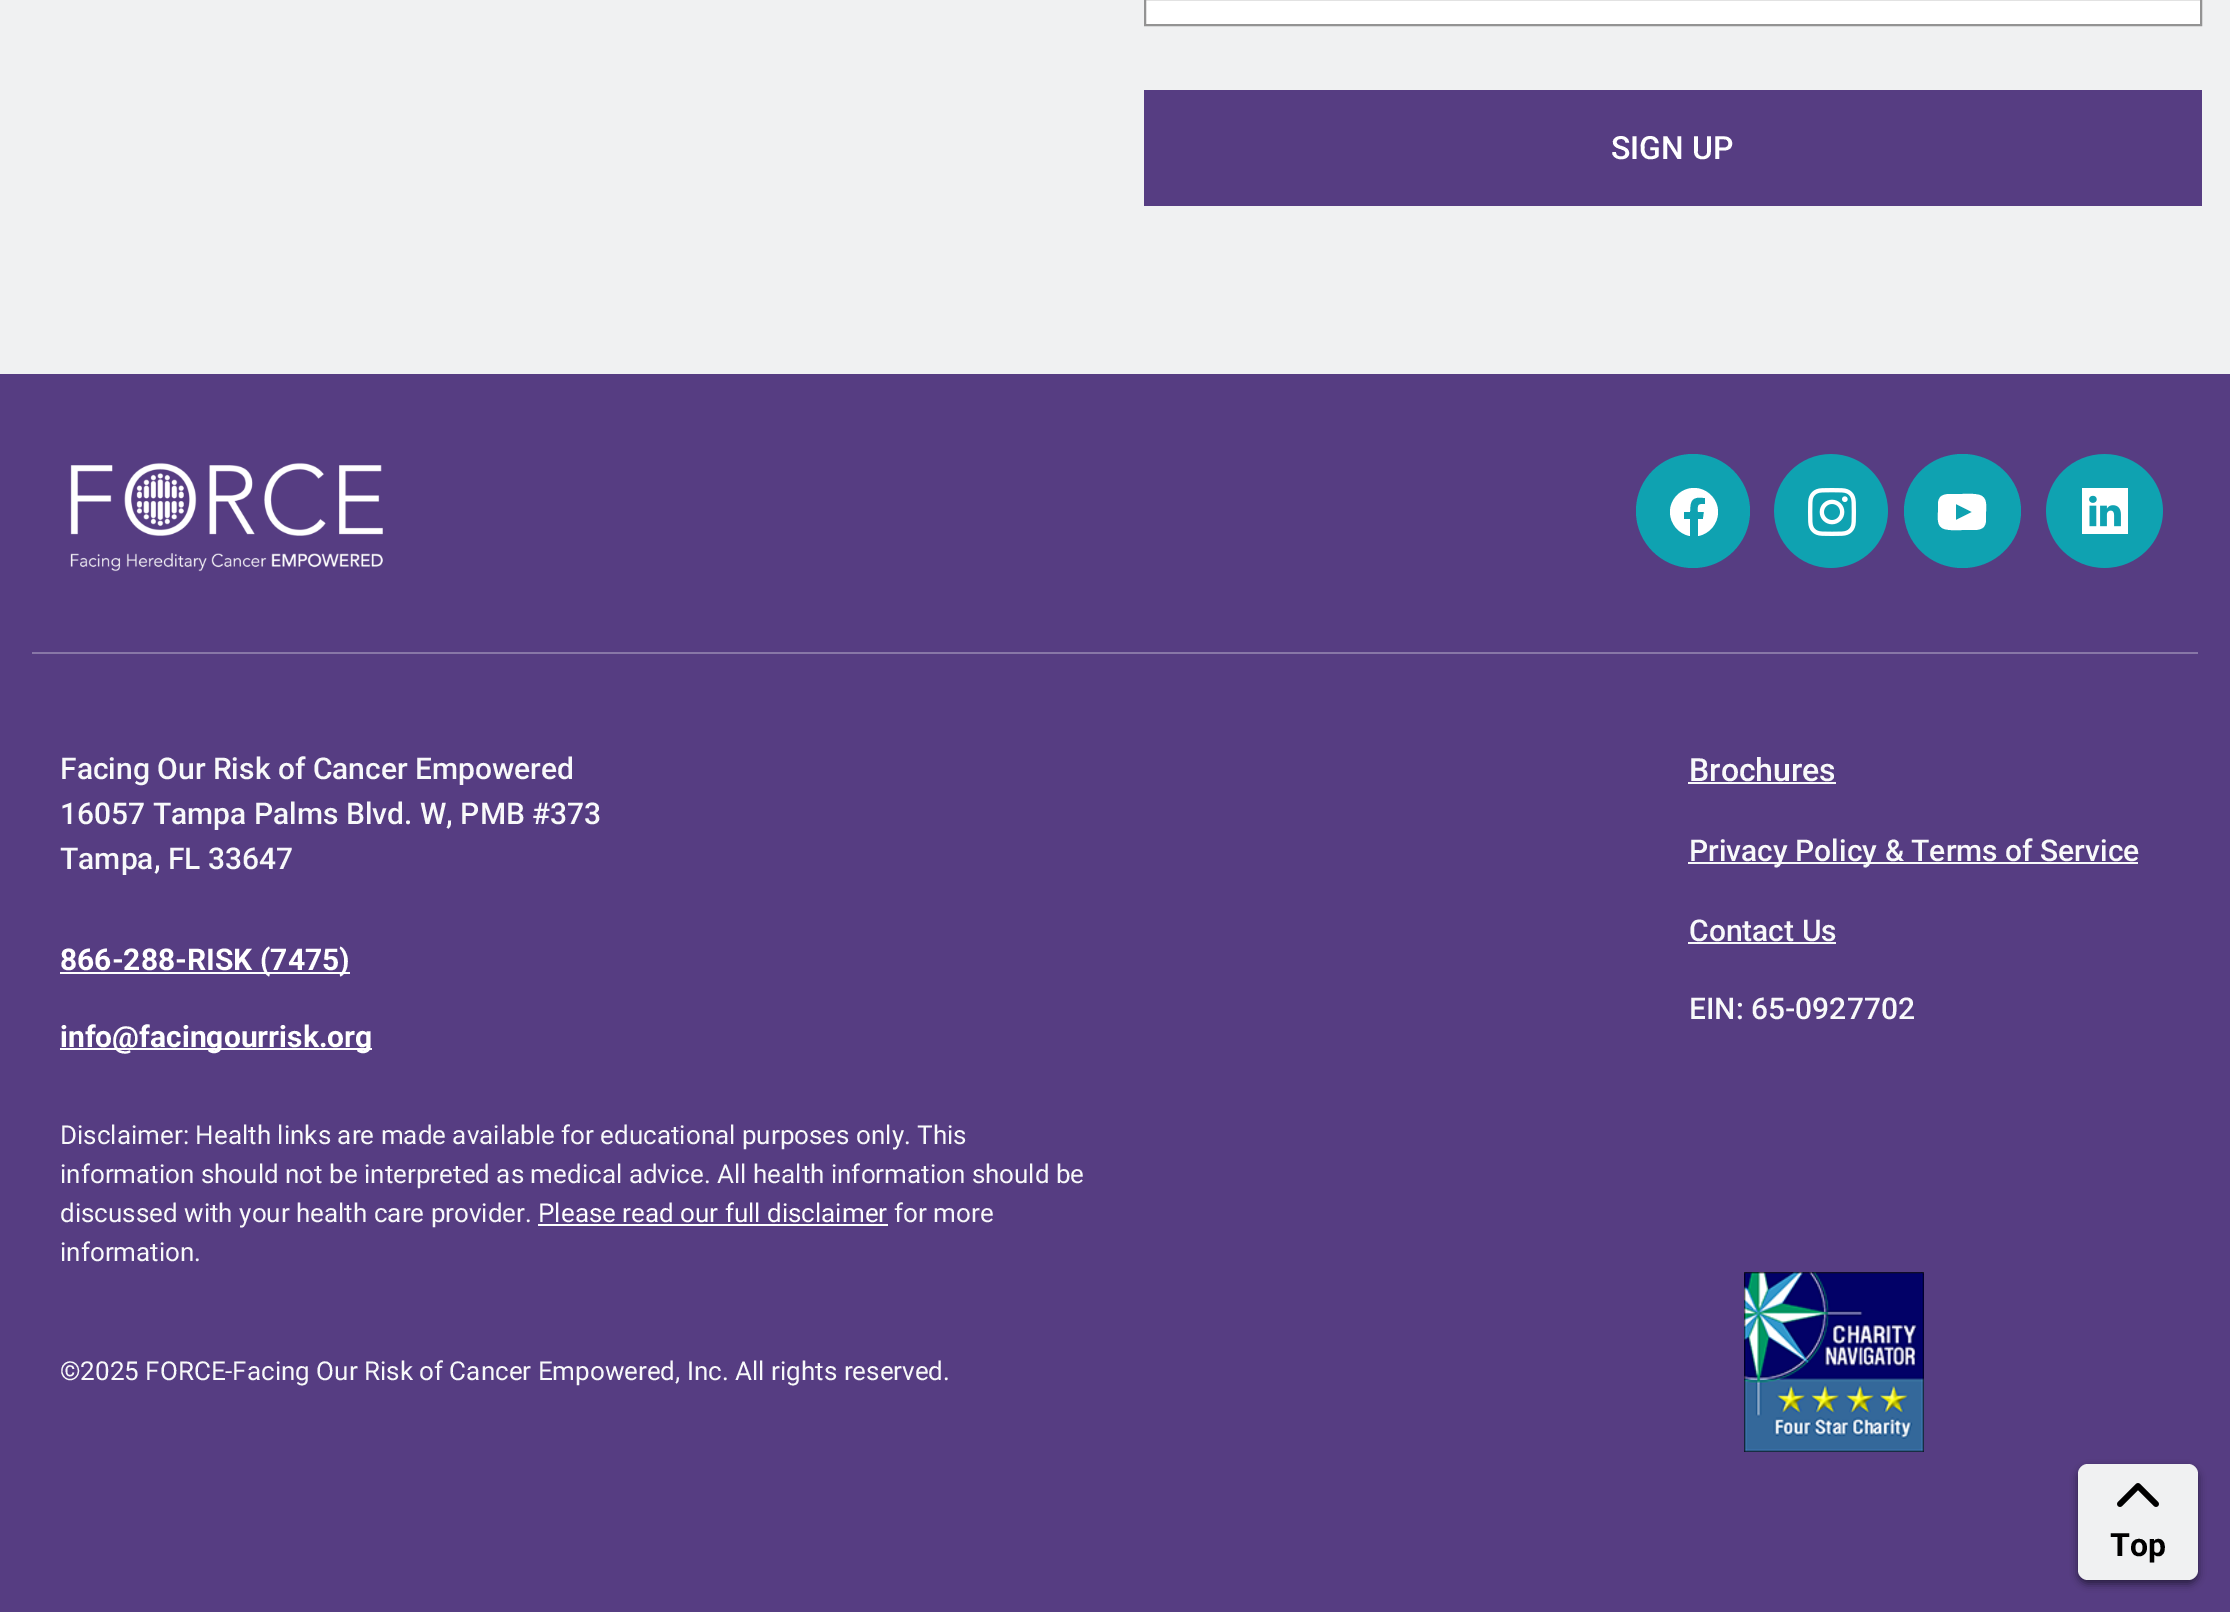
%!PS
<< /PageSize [2230 1612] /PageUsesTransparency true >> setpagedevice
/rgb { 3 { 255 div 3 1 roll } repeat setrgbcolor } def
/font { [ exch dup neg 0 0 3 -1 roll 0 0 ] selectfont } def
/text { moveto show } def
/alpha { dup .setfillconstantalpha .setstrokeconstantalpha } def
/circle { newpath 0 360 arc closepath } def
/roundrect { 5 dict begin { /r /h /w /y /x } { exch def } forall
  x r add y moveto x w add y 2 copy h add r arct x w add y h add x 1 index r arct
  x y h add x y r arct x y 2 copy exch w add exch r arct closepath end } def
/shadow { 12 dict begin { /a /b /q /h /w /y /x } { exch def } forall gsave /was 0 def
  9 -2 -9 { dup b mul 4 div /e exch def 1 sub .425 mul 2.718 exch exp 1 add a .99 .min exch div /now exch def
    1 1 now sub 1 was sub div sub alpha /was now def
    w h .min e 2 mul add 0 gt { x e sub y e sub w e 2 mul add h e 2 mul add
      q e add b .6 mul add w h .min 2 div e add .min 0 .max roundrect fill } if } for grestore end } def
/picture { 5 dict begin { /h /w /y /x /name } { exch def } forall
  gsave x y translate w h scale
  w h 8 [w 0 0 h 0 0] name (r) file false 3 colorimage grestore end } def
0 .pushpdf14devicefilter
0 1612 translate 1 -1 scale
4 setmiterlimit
240 241 242 rgb
0 0 2230 1612 rectfill
255 255 255 rgb
1145 -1 moveto 1056 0 rlineto 0 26 rlineto -1056 0 rlineto closepath gsave fill grestore
147 147 147 rgb
2 setlinewidth
stroke
86 61 130 rgb
1144 90 1058 116 rectfill
0 374 2230 1238 rectfill
136 119 167 rgb
32 652 2166 2 rectfill
(img_01.rgb) 70 462 313 110 picture
15 162 177 rgb
1693 511 57 circle fill
255 255 255 rgb
1718 512 moveto 0 -13 -11 -24 -24 -24 rcurveto -13 0 -24 11 -24 24 rcurveto 0 12 9 22 20 24 rcurveto 0 -17 rlineto -6 0 rlineto 0 -7 rlineto 6 0 rlineto 0 -12 2 -16 15 -14 rcurveto 0 6 rlineto -8 0 -7 1 -7 8 rcurveto 6 0 rlineto -1 7 rlineto -5 0 rlineto 0 17 rlineto 11 -2 20 -12 20 -24 rcurveto closepath fill
(img_02.rgb) 1774 454 114 114 picture
15 162 177 rgb
1962.5 454 moveto 32.5 0 58.5 25.5 58.5 57 rcurveto 0 31.5 -26 57 -58.5 57 rcurveto -32.5 0 -58.5 -25.5 -58.5 -57 rcurveto 0 -31.5 26 -57 58.5 -57 rcurveto closepath fill
255 255 255 rgb
1983 497 moveto 4 3 3 10 3 15 rcurveto 0 9 rlineto -1 6 -3 8 -10 9 rcurveto -14 0 rlineto -5 0 -18 1 -21 -3 rcurveto -4 -3 -3 -10 -3 -15 rcurveto 0 -9 rlineto 1 -6 3 -8 10 -9 rcurveto 14 0 rlineto 5 0 18 -1 21 3 rcurveto closepath 1972 512 moveto -16 -8 rlineto 0 16 rlineto closepath eofill
(img_03.rgb) 2046 454 117 114 picture
60 972 290 2 rectfill
60 1048 312 2 rectfill
538 1224 350 2 rectfill
248 249 250 rgb
1688 782 148 2 rectfill
1688 862 450 2 rectfill
1688 942 148 2 rectfill
(img_04.rgb) 1744 1272 180 180 picture
0 0 0 rgb
2078 1468 120 116 10 4 0.5 shadow
240 241 242 rgb
2078 1464 120 116 10 roundrect fill
(img_05.rgb) 2117 1483 42 24 picture
/Roboto-Medium 32 font
255 255 255 rgb
(SIGN UP) 1611 159 text
/Roboto-Medium 30 font
248 249 250 rgb
(Facing Our Risk of Cancer Empowered) 60 779 text
(16057 Tampa Palms Blvd. W, PMB #373) 60 824 text
(Tampa, FL 33647) 60 869 text
/Roboto-Bold 30 font
255 255 255 rgb
(866-288-RISK \(7475\)) 60 970 text
(info@facingourrisk.org) 60 1047 text
/Roboto-Regular 26 font
248 249 250 rgb
(Disclaimer: Health links are made available for educational purposes only. This) 60 1144 text
(information should not be interpreted as medical advice. All health information should be) 60 1183 text
(discussed with your health care provider.) 60 1222 text
255 255 255 rgb
(Please read our full disclaimer) 538 1222 text
248 249 250 rgb
(for more) 894 1222 text
(information.) 60 1261 text
(©2025 FORCE-Facing Our Risk of Cancer Empowered, Inc. All rights reserved.) 60 1380 text
/Roboto-Medium 32 font
(Brochures) 1689 781 text
/Roboto-Medium 30 font
(Privacy Policy & Terms of Service) 1689 861 text
(Contact Us) 1689 941 text
(EIN: 65-0927702) 1689 1019 text
/Roboto-Bold 32 font
0 0 0 rgb
(Top) 2110 1556 text
.poppdf14devicefilter showpage
